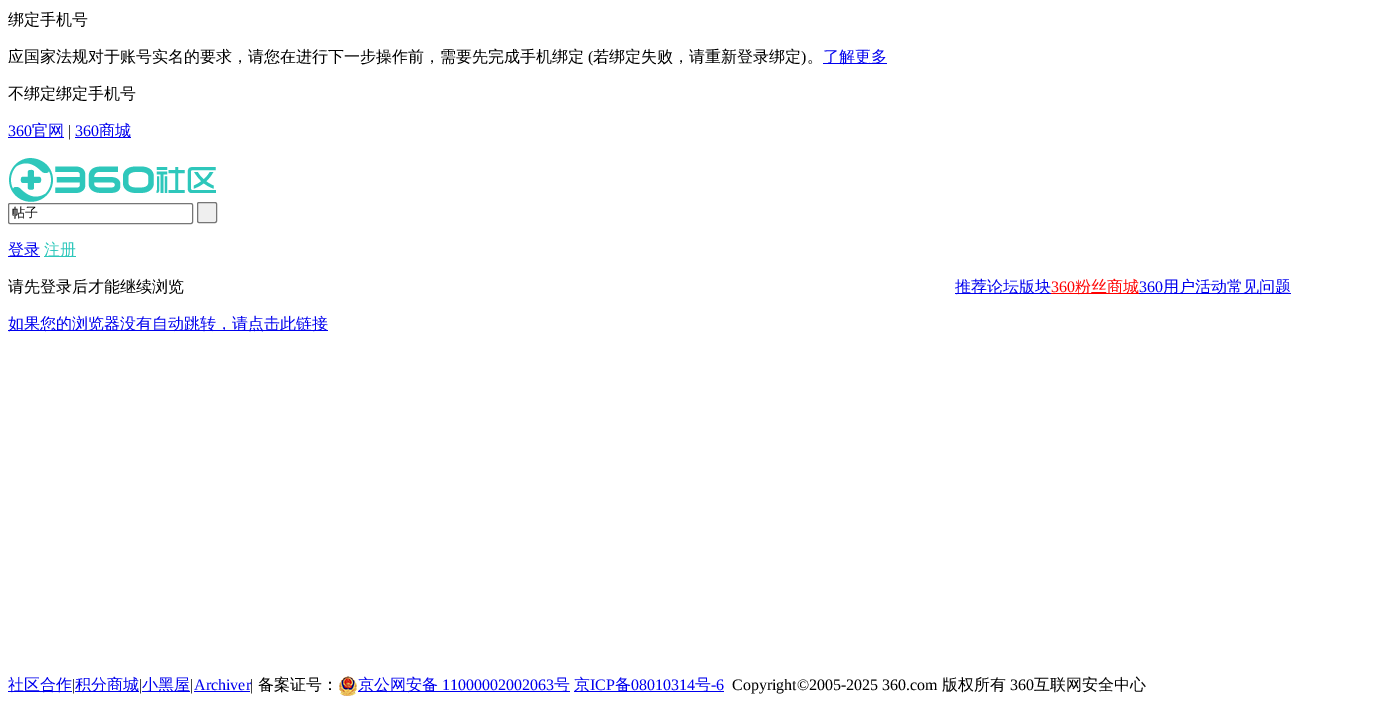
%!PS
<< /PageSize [1389 702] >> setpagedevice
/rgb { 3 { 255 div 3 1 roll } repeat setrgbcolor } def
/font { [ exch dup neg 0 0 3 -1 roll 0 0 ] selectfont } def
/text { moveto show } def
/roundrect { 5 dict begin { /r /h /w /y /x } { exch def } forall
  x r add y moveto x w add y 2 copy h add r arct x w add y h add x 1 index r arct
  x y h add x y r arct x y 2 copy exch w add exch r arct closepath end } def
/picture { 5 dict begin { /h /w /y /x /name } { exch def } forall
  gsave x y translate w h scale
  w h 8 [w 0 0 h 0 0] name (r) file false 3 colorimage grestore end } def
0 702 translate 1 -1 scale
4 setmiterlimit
255 255 255 rgb
0 0 1389 702 rectfill
0 0 238 rgb
823 63 64 1 rectfill
8 137 56 1 rectfill
75 137 56 1 rectfill
(img_01.rgb) 9 158 207 44 picture
118 118 118 rgb
8.5 203.5 184 20 1.5 roundrect stroke
239 239 239 rgb
197.5 202.5 19 20 1.5 roundrect gsave fill grestore
118 118 118 rgb
stroke
0 0 238 rgb
8 256 32 1 rectfill
46 199 187 rgb
44 256 32 1 rectfill
0 0 238 rgb
955 293 96 1 rectfill
255 0 0 rgb
1051 293 88 1 rectfill
0 0 238 rgb
1139 293 152 1 rectfill
8 330 320 1 rectfill
8 691 64 1 rectfill
75 691 64 1 rectfill
142 691 48 1 rectfill
194 691 56 1 rectfill
(img_02.rgb) 339 676 18 20 picture
358 691 212 1 rectfill
574 691 150 1 rectfill
/WenQuanYiZenHei-Medium 16 font
0 0 0 rgb
(绑定手机号) 8 25 text
(应国家法规对于账号实名的要求，请您在进行下一步操作前，需要先完成手机绑定) 8 62 text
/LiberationSerif-Regular 16 font
(\() 588 62 text
/WenQuanYiZenHei-Medium 16 font
(若绑定失败，请重新登录绑定) 593 62 text
/LiberationSerif-Regular 16 font
(\)) 801 62 text
/WenQuanYiZenHei-Medium 16 font
(。) 807 62 text
0 0 238 rgb
(了解更多) 823 62 text
0 0 0 rgb
(不绑定绑定手机号) 8 99 text
/LiberationSerif-Regular 16 font
0 0 238 rgb
(360) 8 136 text
/WenQuanYiZenHei-Medium 16 font
(官网) 32 136 text
/LiberationSerif-Regular 16 font
0 0 0 rgb
(|) 68 136 text
0 0 238 rgb
(360) 75 136 text
/WenQuanYiZenHei-Medium 16 font
(商城) 99 136 text
/WenQuanYiZenHei-Medium 13 font
0 0 0 rgb
(帖子) 12 217 text
/WenQuanYiZenHei-Medium 16 font
0 0 238 rgb
(登录) 8 255 text
46 199 187 rgb
(注册) 44 255 text
0 0 238 rgb
(推荐论坛版块) 955 292 text
/LiberationSerif-Regular 16 font
255 0 0 rgb
(360) 1051 292 text
/WenQuanYiZenHei-Medium 16 font
(粉丝商城) 1075 292 text
/LiberationSerif-Regular 16 font
0 0 238 rgb
(360) 1139 292 text
/WenQuanYiZenHei-Medium 16 font
(用户活动常见问题) 1163 292 text
0 0 0 rgb
(请先登录后才能继续浏览) 8 292 text
0 0 238 rgb
(如果您的浏览器没有自动跳转，请点击此链接) 8 329 text
(社区合作) 8 690 text
/LiberationSerif-Regular 16 font
0 0 0 rgb
(|) 72 690 text
/WenQuanYiZenHei-Medium 16 font
0 0 238 rgb
(积分商城) 75 690 text
/LiberationSerif-Regular 16 font
0 0 0 rgb
(|) 139 690 text
/WenQuanYiZenHei-Medium 16 font
0 0 238 rgb
(小黑屋) 142 690 text
/LiberationSerif-Regular 16 font
0 0 0 rgb
(|) 190 690 text
0 0 238 rgb
(Archiver) 194 690 text
0 0 0 rgb
(|) 250 690 text
/WenQuanYiZenHei-Medium 16 font
(备案证号：) 258 690 text
0 0 238 rgb
(京公网安备) 358 690 text
/LiberationSerif-Regular 16 font
(11000002002063) 442 690 text
/WenQuanYiZenHei-Medium 16 font
(号) 554 690 text
(京) 574 690 text
/LiberationSerif-Regular 16 font
(ICP) 590 690 text
/WenQuanYiZenHei-Medium 16 font
(备) 615 690 text
/LiberationSerif-Regular 16 font
(08010314) 631 690 text
/WenQuanYiZenHei-Medium 16 font
(号) 695 690 text
/LiberationSerif-Regular 16 font
(-6) 711 690 text
0 0 0 rgb
(Copyright©2005-2025 360.com) 732 690 text
/WenQuanYiZenHei-Medium 16 font
(版权所有) 942 690 text
/LiberationSerif-Regular 16 font
(360) 1010 690 text
/WenQuanYiZenHei-Medium 16 font
(互联网安全中心) 1034 690 text
showpage
